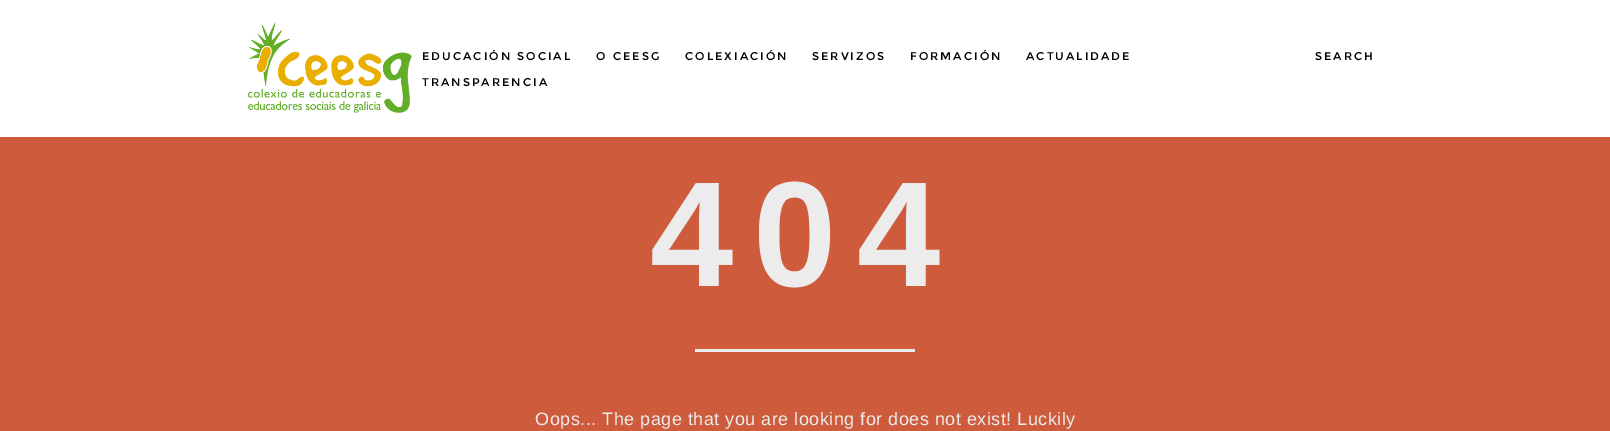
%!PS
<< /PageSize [1610 431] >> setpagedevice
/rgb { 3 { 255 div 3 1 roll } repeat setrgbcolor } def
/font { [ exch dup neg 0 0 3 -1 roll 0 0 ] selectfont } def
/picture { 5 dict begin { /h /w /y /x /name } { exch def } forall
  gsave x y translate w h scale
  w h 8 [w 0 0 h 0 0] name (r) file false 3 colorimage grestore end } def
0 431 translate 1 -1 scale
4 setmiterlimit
255 255 255 rgb
0 0 1610 431 rectfill
(img_01.rgb) 247 22 165 91 picture
205 91 60 rgb
0 137 1610 294 rectfill
236 236 236 rgb
695 349 220 3 rectfill
/Montserrat-Regular 11.25 font
0 0 0 rgb
422 60 moveto 2 0 (EDUCACIÓN SOCIAL) ashow
596 60 moveto 2 0 (O CEESG) ashow
685 60 moveto 2 0 (COLEXIACIÓN) ashow
812 60 moveto 2 0 (SERVIZOS) ashow
910 60 moveto 2 0 (FORMACIÓN) ashow
1026 60 moveto 2 0 (ACTUALIDADE) ashow
422 86 moveto 2 0 (TRANSPARENCIA) ashow
1315 60 moveto 2 0 (SEARCH) ashow
/LiberationSans-Bold 150 font
236 236 236 rgb
650 286 moveto 20 0 (404) ashow
/LiberationSans-Regular 18 font
535 425 moveto 0.5 0 (Oops... The page that you are looking for does not exist! Luckily) ashow
showpage
